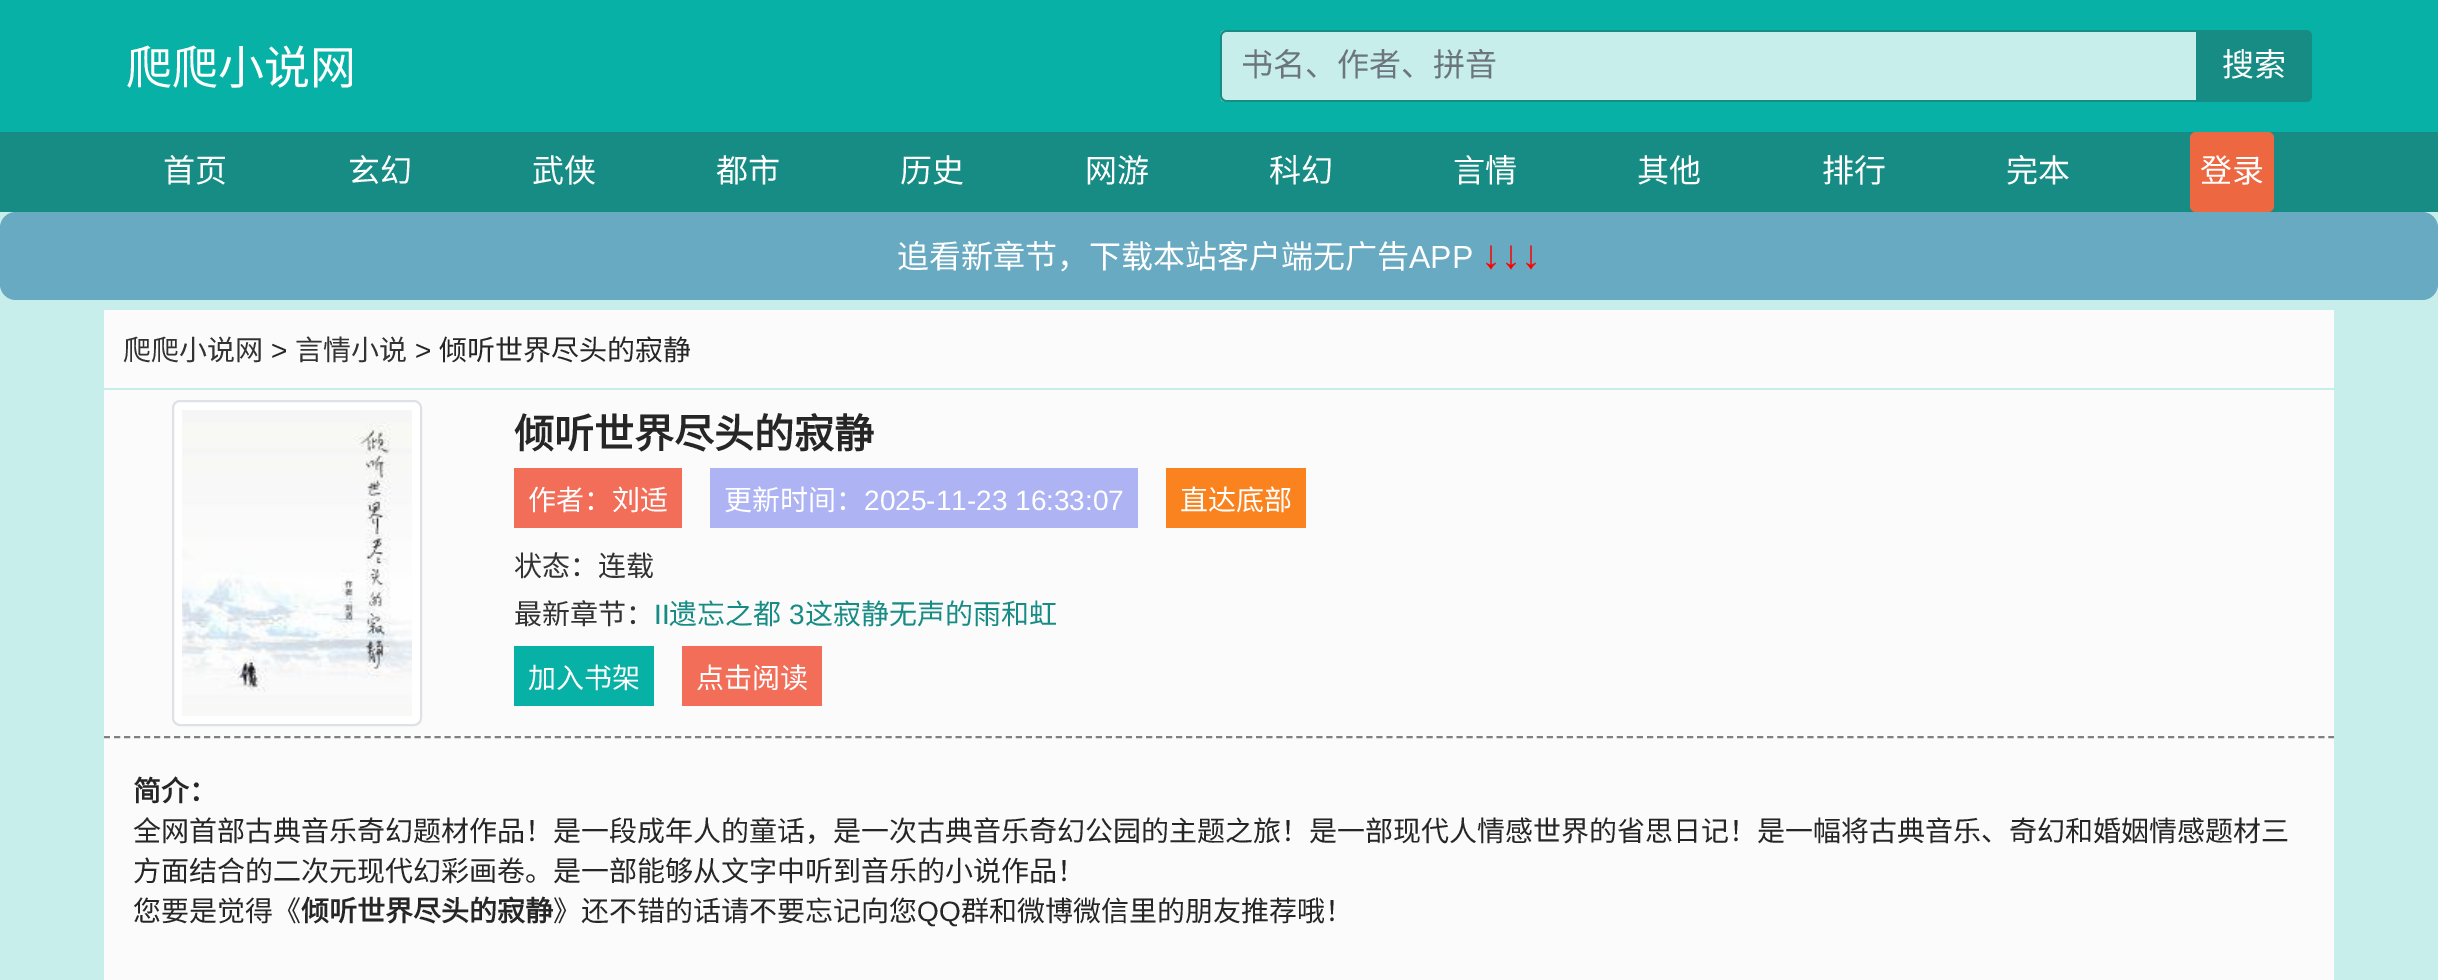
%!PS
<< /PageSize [2438 980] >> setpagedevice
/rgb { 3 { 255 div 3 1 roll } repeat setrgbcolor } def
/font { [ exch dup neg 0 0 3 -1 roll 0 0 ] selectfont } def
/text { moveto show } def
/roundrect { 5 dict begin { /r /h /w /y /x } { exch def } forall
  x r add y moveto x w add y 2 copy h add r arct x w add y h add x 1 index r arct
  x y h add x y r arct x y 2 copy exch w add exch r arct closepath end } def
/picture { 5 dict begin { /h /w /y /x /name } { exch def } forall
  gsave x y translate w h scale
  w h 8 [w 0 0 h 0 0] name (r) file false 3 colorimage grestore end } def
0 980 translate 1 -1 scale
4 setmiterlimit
200 238 235 rgb
0 0 2438 980 rectfill
7 177 166 rgb
0 0 2438 132 rectfill
200 238 235 rgb
1226 30 moveto 972 0 rlineto 0 72 rlineto -972 0 rlineto -3.5 0 -6 -2.5 -6 -6 rcurveto 0 -60 rlineto 0 -3.5 2.5 -6 6 -6 rcurveto closepath fill
22 140 132 rgb
1226 30 moveto 972 0 rlineto 0 72 rlineto -972 0 rlineto -3 0 -6 -3 -6 -6 rcurveto 0 -60 rlineto 0 -3 3 -6 6 -6 rcurveto closepath 1226 32 moveto 972 0 rlineto 0 68 rlineto -972 0 rlineto -2 0 -4 -2 -4 -4 rcurveto 0 -60 rlineto 0 -2 2 -4 4 -4 rcurveto closepath eofill
2196 30 moveto 110 0 rlineto 3.5 0 6 2.5 6 6 rcurveto 0 60 rlineto 0 3.5 -2.5 6 -6 6 rcurveto -110 0 rlineto closepath fill
0 132 2438 80 rectfill
237 103 65 rgb
2190 132 84 80 6 roundrect fill
104 170 194 rgb
0 212 2438 88 16 roundrect fill
251 251 251 rgb
104 310 2230 670 rectfill
200 238 235 rgb
104 388 2230 2 rectfill
255 255 255 rgb
173 401 248 324 7 roundrect gsave fill grestore
222 226 230 rgb
2 setlinewidth
stroke
(img_01.rgb) 182 410 230 306 picture
242 110 89 rgb
514 468 168 60 rectfill
173 179 243 rgb
710 468 428 60 rectfill
250 131 31 rgb
1166 468 140 60 rectfill
7 177 166 rgb
514 646 140 60 rectfill
242 110 89 rgb
682 646 140 60 rectfill
128 128 128 rgb
[6 4.02] 0 setdash
104 737 moveto 2230 0 rlineto stroke
/NotoSansCJKSC-Regular 46 font
255 255 255 rgb
(爬爬小说网) 126 84 text
/NotoSansCJKSC-Regular 32 font
108 117 125 rgb
(书名、作者、拼音) 1241 76 text
255 255 255 rgb
(搜索) 2222 76 text
(首页) 163 182 text
(玄幻) 348 182 text
(武侠) 532 182 text
(都市) 716 182 text
(历史) 900 182 text
(网游) 1085 182 text
(科幻) 1269 182 text
(言情) 1453 182 text
(其他) 1637 182 text
(排行) 1822 182 text
(完本) 2006 182 text
(登录) 2200 182 text
(追看新章节，下载本站客户端无广告) 897 268 text
/LiberationSans-Regular 32 font
(APP) 1409 268 text
/LiberationSerif-Bold 40 font
255 0 0 rgb
(↓↓↓) 1481 268 text
/NotoSansCJKSC-Regular 28 font
51 51 51 rgb
(爬爬小说网) 123 360 text
/LiberationSans-Regular 28 font
38 38 38 rgb
(>) 271 360 text
/NotoSansCJKSC-Regular 28 font
51 51 51 rgb
(言情小说) 295 360 text
/LiberationSans-Regular 28 font
38 38 38 rgb
(>) 415 360 text
/NotoSansCJKSC-Regular 28 font
(倾听世界尽头的寂静) 439 360 text
/NotoSansCJKSC-Bold 40 font
(倾听世界尽头的寂静) 514 448 text
/NotoSansCJKSC-Regular 28 font
255 255 255 rgb
(作者：刘适) 528 510 text
(更新时间：) 724 510 text
/LiberationSans-Regular 28 font
(2025-11-23 16:33:07) 864 510 text
/NotoSansCJKSC-Regular 28 font
(直达底部) 1180 510 text
51 51 51 rgb
(状态：连载) 514 576 text
(最新章节：) 514 624 text
/LiberationSans-Regular 28 font
22 140 132 rgb
(II) 654 624 text
/NotoSansCJKSC-Regular 28 font
(遗忘之都) 669 624 text
/LiberationSans-Regular 28 font
(3) 789 624 text
/NotoSansCJKSC-Regular 28 font
(这寂静无声的雨和虹) 805 624 text
255 255 255 rgb
(加入书架) 528 688 text
(点击阅读) 696 688 text
/NotoSansCJKSC-Bold 28 font
38 38 38 rgb
(简介：) 133 801 text
/NotoSansCJKSC-Regular 28 font
(全网首部古典音乐奇幻题材作品！是一段成年人的童话，是一次古典音乐奇幻公园的主题之旅！是一部现代人情感世界的省思日记！是一幅将古典音乐、奇幻和婚姻情感题材三) 133 841 text
(方面结合的二次元现代幻彩画卷。是一部能够从文字中听到音乐的小说作品！) 133 881 text
(您要是觉得《) 133 921 text
/NotoSansCJKSC-Bold 28 font
(倾听世界尽头的寂静) 301 921 text
/NotoSansCJKSC-Regular 28 font
(》还不错的话请不要忘记向您) 553 921 text
/LiberationSans-Regular 28 font
(QQ) 917 921 text
/NotoSansCJKSC-Regular 28 font
(群和微博微信里的朋友推荐哦！) 961 921 text
showpage
